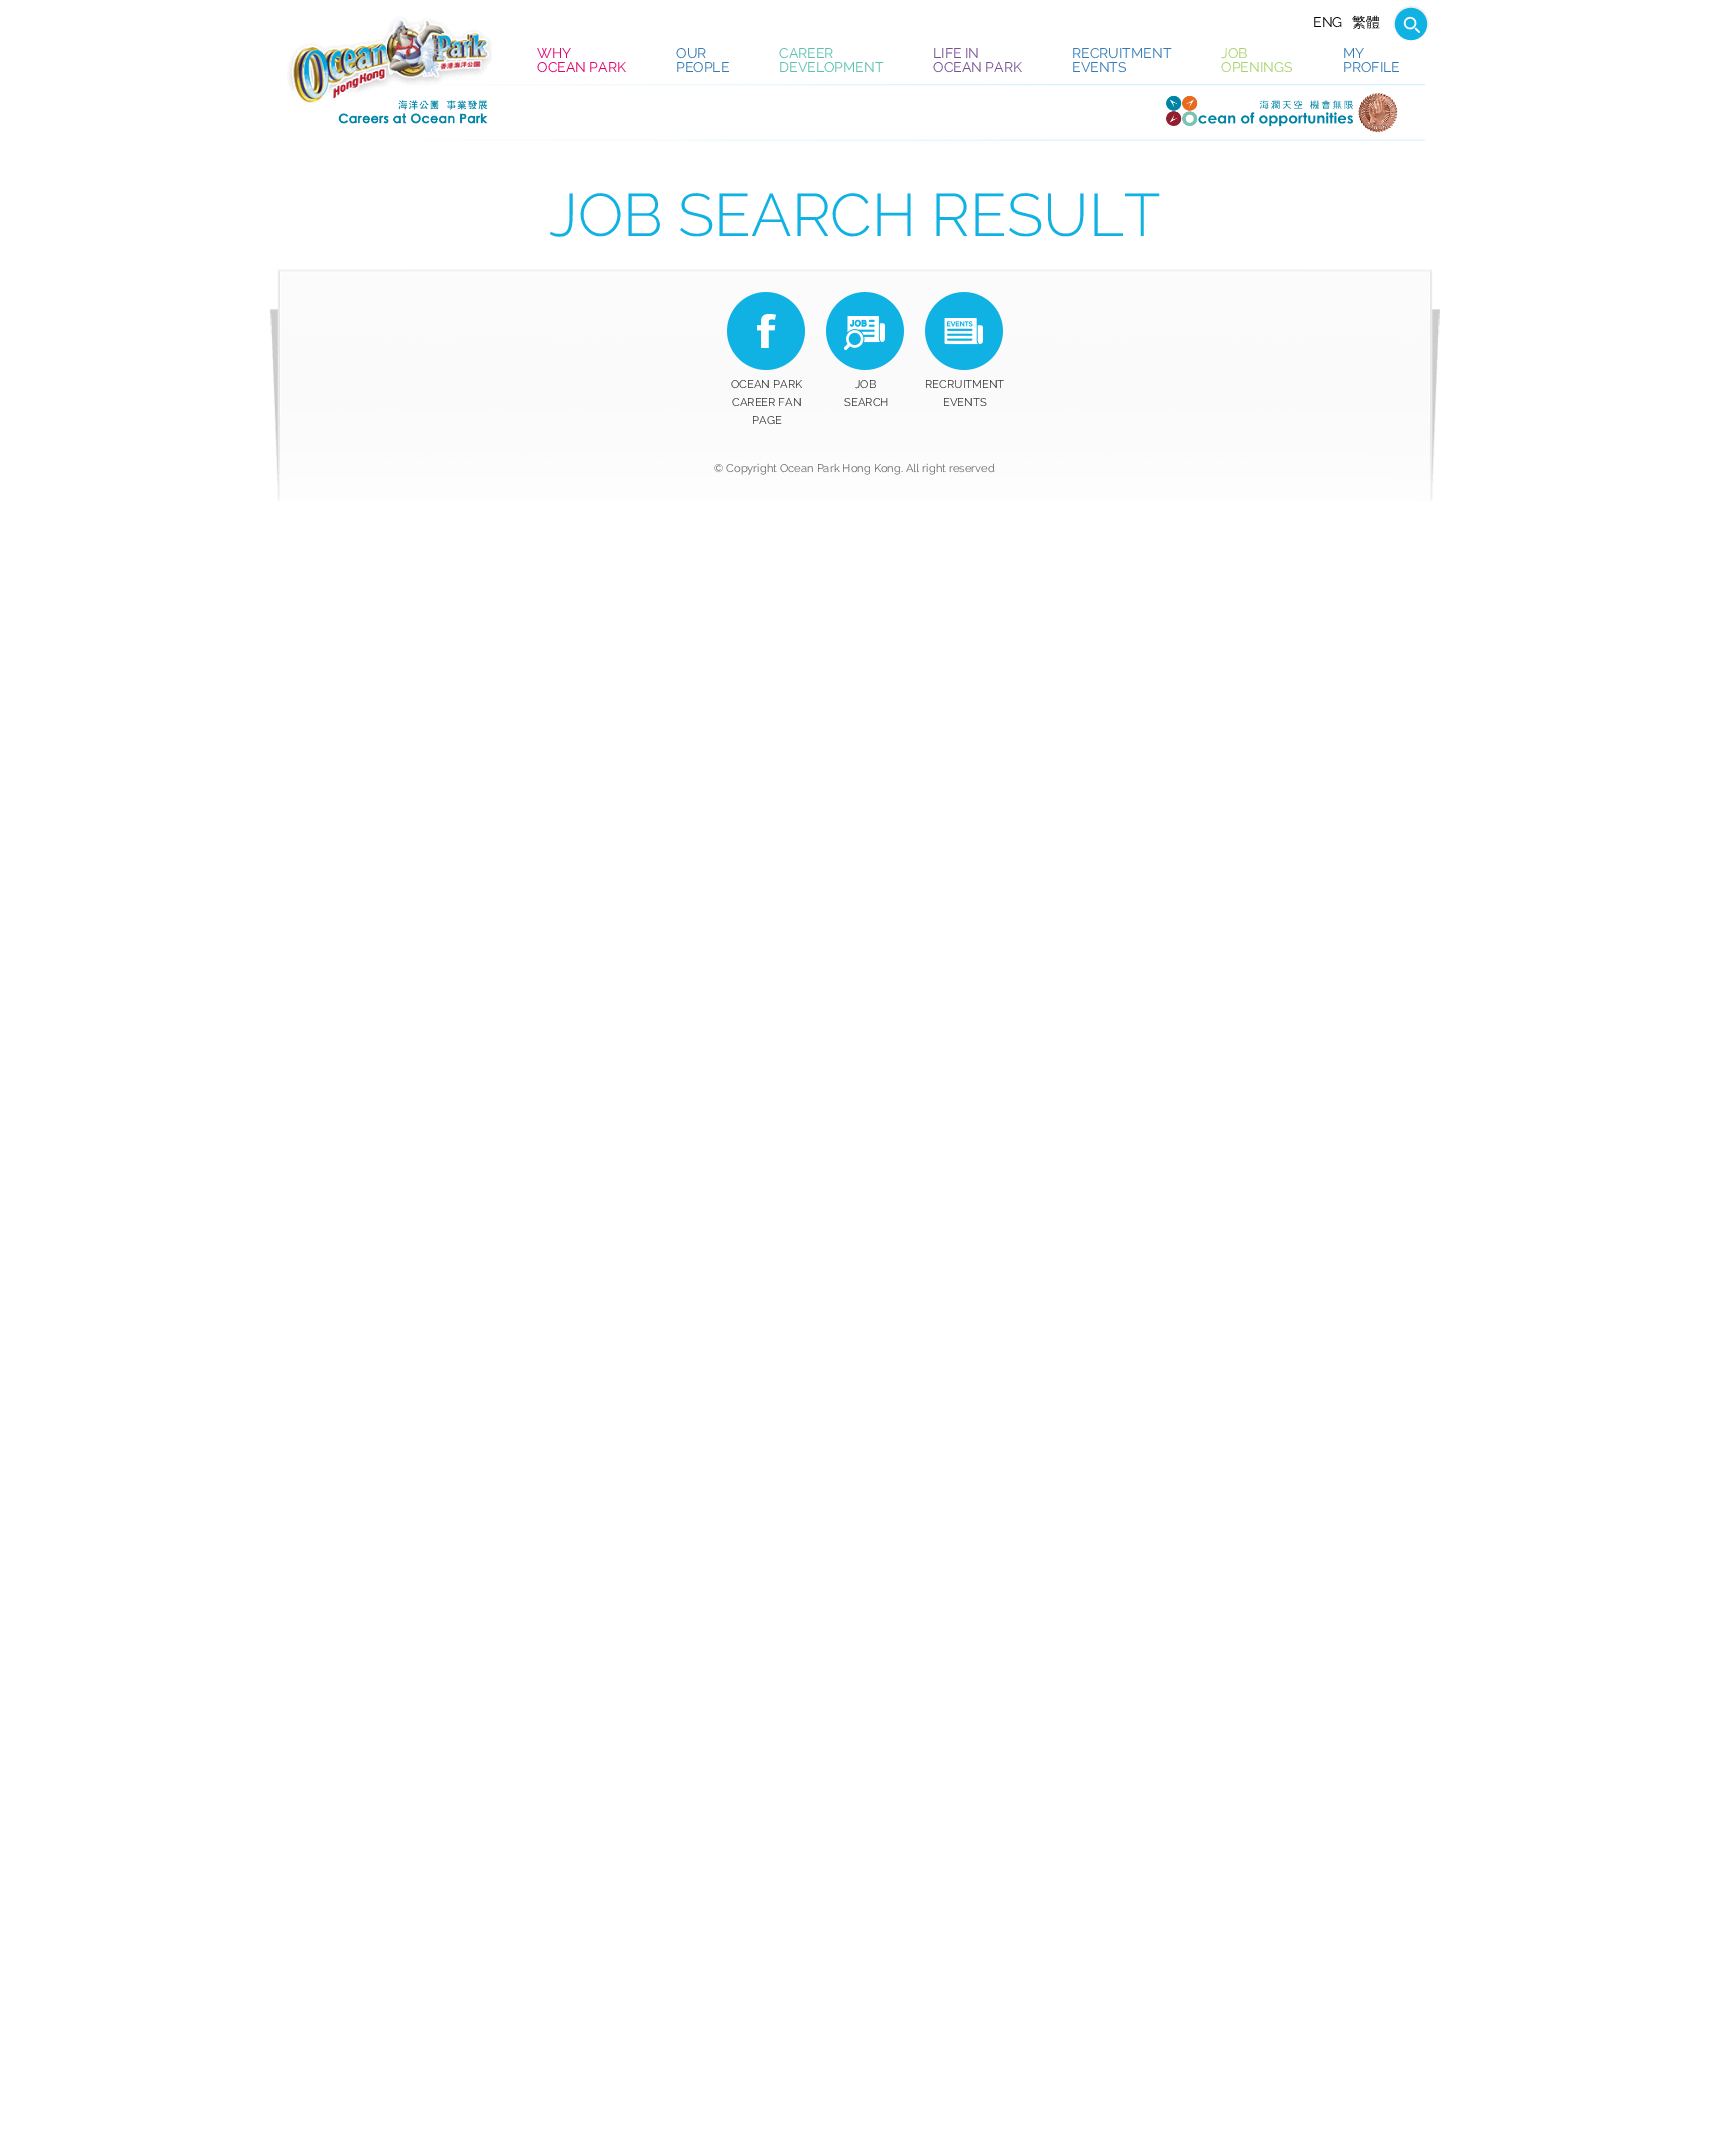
%!PS
<< /PageSize [1709 2142] >> setpagedevice
/rgb { 3 { 255 div 3 1 roll } repeat setrgbcolor } def
/font { [ exch dup neg 0 0 3 -1 roll 0 0 ] selectfont } def
/text { moveto show } def
/picture { 5 dict begin { /h /w /y /x /name } { exch def } forall
  gsave x y translate w h scale
  w h 8 [w 0 0 h 0 0] name (r) file false 3 colorimage grestore end } def
0 2142 translate 1 -1 scale
4 setmiterlimit
255 255 255 rgb
0 0 1709 2142 rectfill
(img_03.rgb) 338 84 1087 57 picture
(img_01.rgb) 287 16 205 88 picture
(img_02.rgb) 1393 6 36 35 picture
(img_04.rgb) 270 269 1170 233 picture
(img_05.rgb) 727 292 78 78 picture
(img_06.rgb) 826 292 78 78 picture
(img_07.rgb) 925 292 78 78 picture
/Raleway-Regular 14 font
0 0 0 rgb
(ENG) 1313 27 text
/WenQuanYiZenHei-Medium 14 font
(繁體) 1352 27 text
/Raleway-Regular 14 font
226 0 107 rgb
(WHY) 537 58 text
(OCEAN PARK) 537 72 text
51 122 183 rgb
(OUR) 676 58 text
(PEOPLE) 676 72 text
90 193 177 rgb
(CAREER) 779 58 text
(DEVELOPMENT) 779 72 text
120 81 148 rgb
(LIFE IN) 933 58 text
(OCEAN PARK) 933 72 text
51 122 183 rgb
(RECRUITMENT) 1072 58 text
(EVENTS) 1072 72 text
168 211 106 rgb
(JOB) 1221 58 text
(OPENINGS) 1221 72 text
51 122 183 rgb
(MY) 1343 58 text
(PROFILE) 1343 72 text
/Raleway-Light 60 font
16 177 227 rgb
(JOB SEARCH RESULT) 549 236 text
/Raleway-Regular 11.2 font
51 51 51 rgb
(OCEAN PARK) 731 388 text
(CAREER FAN) 732 406 text
(PAGE) 752 424 text
(JOB) 855 388 text
(SEARCH) 844 406 text
(RECRUITMENT) 925 388 text
(EVENTS) 943 406 text
102 102 102 rgb
(© Copyright Ocean Park Hong Kong. All right reserved) 714 472 text
showpage
